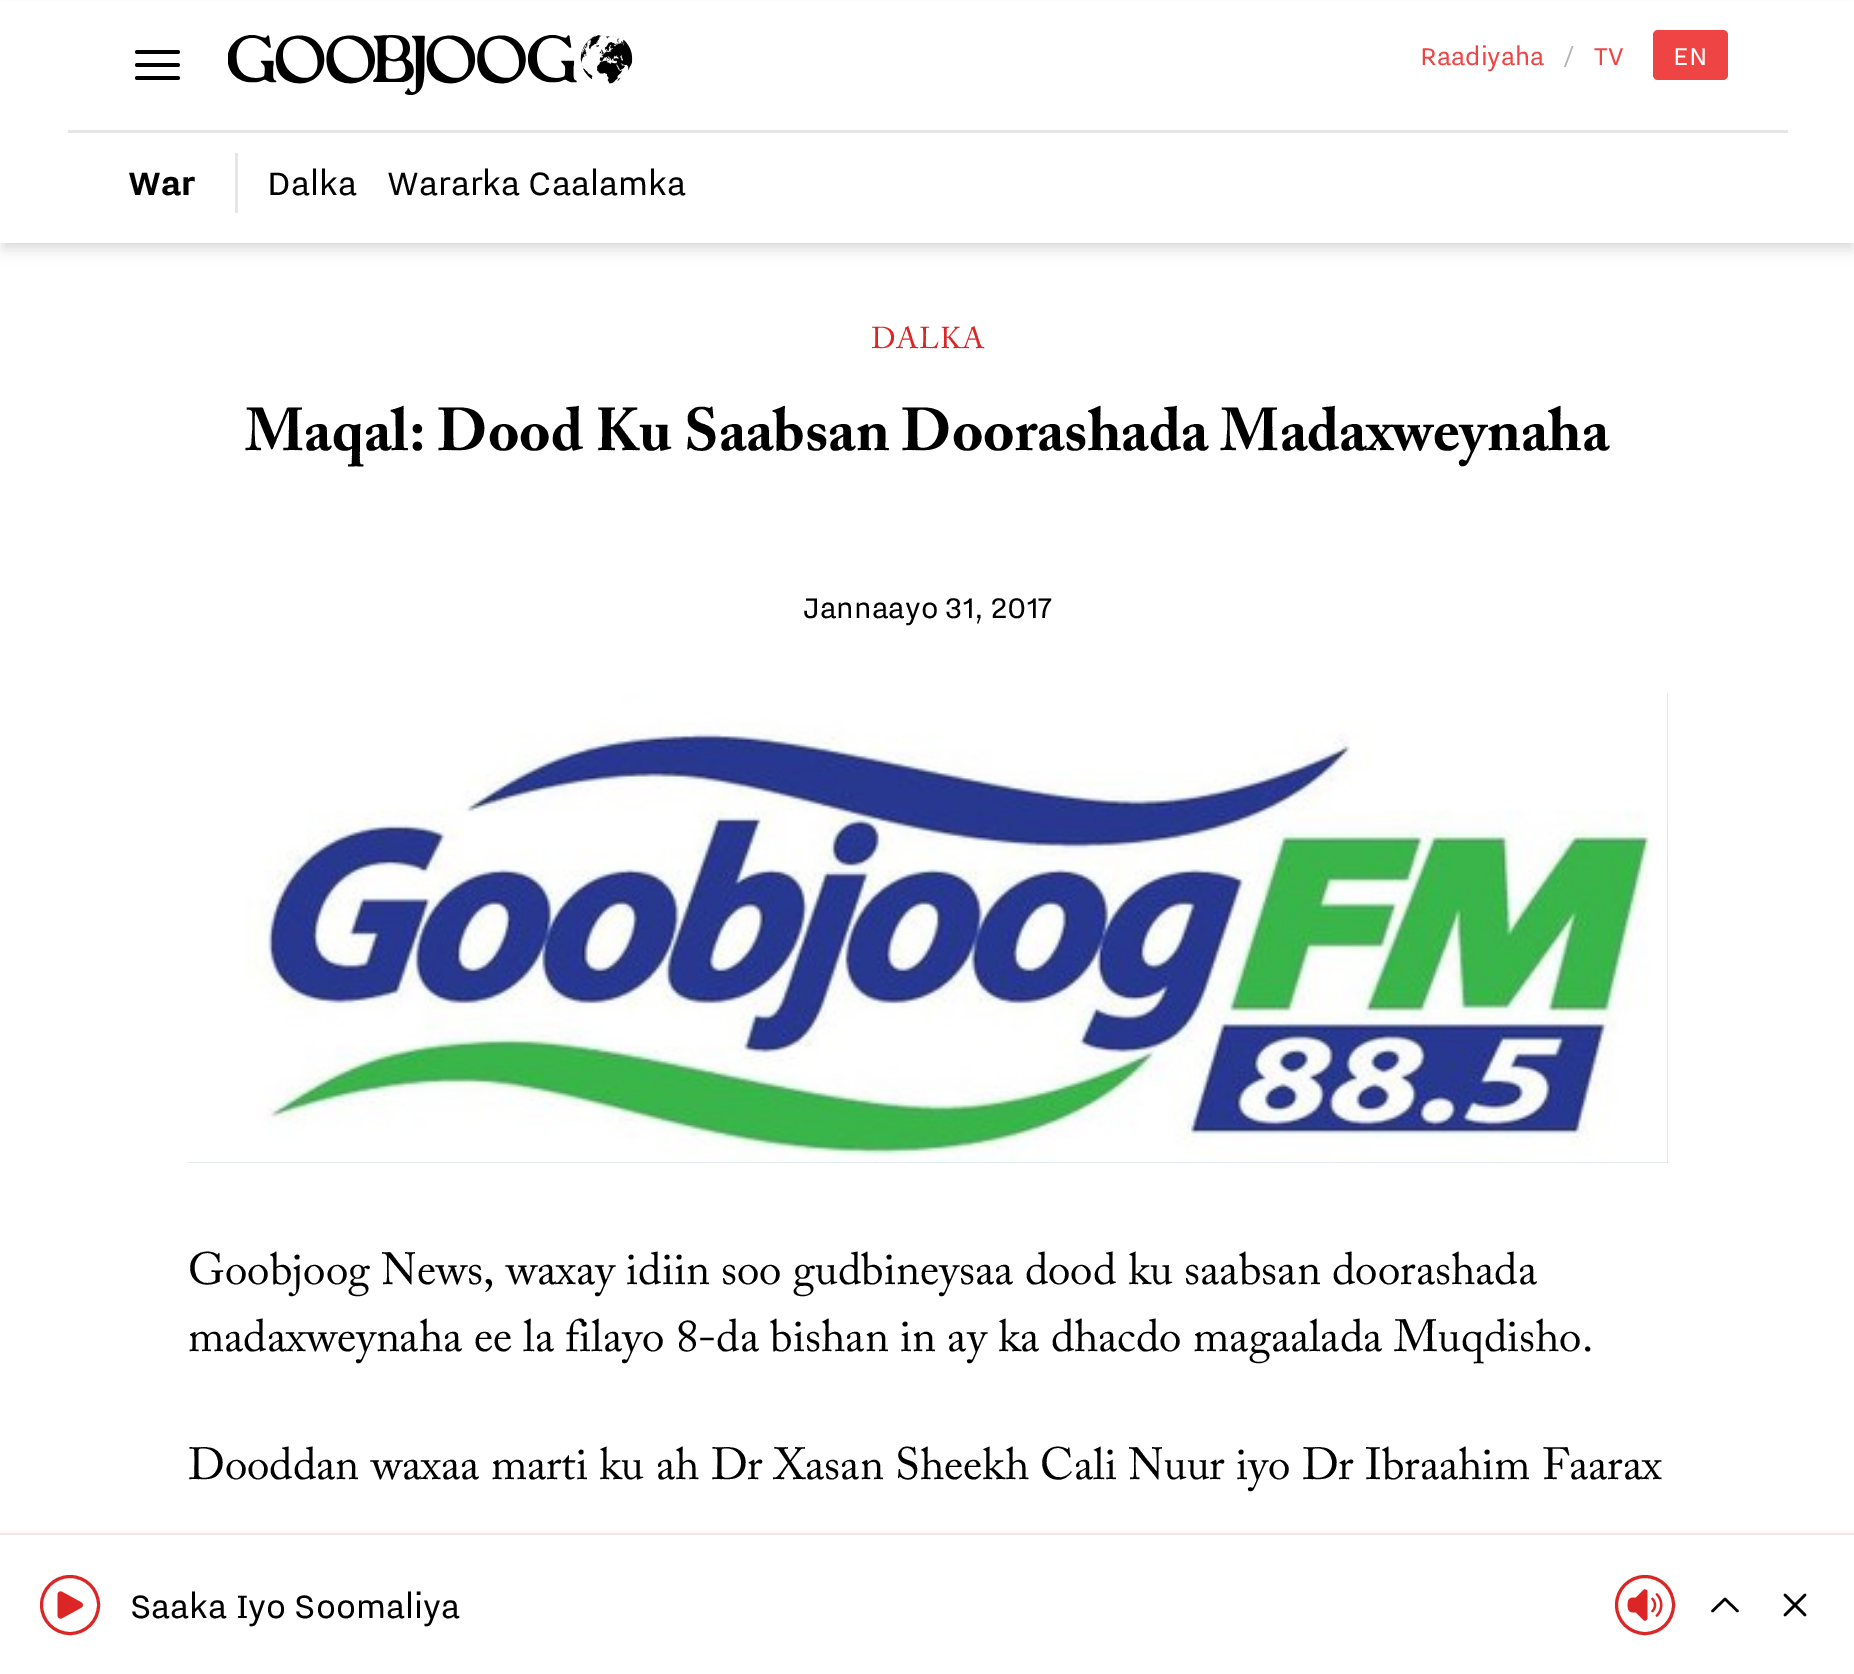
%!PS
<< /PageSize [1854 1674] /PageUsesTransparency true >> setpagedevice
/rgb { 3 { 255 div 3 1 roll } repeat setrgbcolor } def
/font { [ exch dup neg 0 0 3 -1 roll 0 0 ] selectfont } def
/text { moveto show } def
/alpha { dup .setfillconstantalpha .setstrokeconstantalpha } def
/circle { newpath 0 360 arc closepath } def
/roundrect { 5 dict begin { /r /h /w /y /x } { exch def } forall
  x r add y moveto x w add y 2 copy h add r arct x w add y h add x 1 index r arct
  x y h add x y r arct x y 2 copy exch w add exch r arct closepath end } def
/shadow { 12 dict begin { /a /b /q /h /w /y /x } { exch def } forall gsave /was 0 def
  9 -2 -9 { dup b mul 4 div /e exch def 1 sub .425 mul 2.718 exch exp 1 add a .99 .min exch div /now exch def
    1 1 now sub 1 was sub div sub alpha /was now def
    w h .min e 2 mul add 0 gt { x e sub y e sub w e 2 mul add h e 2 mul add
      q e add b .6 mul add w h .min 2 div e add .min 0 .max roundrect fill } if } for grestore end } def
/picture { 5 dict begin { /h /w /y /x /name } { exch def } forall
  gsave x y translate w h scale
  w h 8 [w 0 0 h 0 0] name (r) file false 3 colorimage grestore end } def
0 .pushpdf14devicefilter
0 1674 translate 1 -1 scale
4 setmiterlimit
255 255 255 rgb
0 0 1854 1674 rectfill
0 0 0 rgb
5 10 1845 233 0 5 0.1 shadow
3 13 1850 237 0 7.5 0.1 shadow
255 255 255 rgb
0 1 1854 242 rectfill
0 0 0 rgb
3.8 setlinewidth
1 setlinecap
1 setlinejoin
137 52 moveto 41 0 rlineto 137 65 moveto 41 0 rlineto 137 78 moveto 41 0 rlineto stroke
(img_01.rgb) 228 35 405 60 picture
239 68 68 rgb
1653 30 75 50 5 roundrect fill
230 230 230 rgb
68 130 1720 3 rectfill
235 153 3 60 rectfill
203 213 225 rgb
188 693 1480 470 rectfill
(img_02.rgb) 188 693 1480 470 picture
239 68 68 rgb
0 1538 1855 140 0 4 0.5 shadow
0.05 alpha
17 24 39 rgb
3 setlinewidth
0 setlinecap
0 setlinejoin
-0.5 1534.5 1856 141 rectstroke
1 alpha
255 255 255 rgb
0 1535 1854 139 rectfill
220 38 38 rgb
70 1605 28.5 circle stroke
(img_03.rgb) 57 1591 26 28 picture
1645 1605 28.5 circle stroke
(img_04.rgb) 1627 1589 36 32 picture
0 0 0 rgb
2.5 setlinewidth
1 setlinecap
1 setlinejoin
1712.5 1611 moveto 12.5 -12 rlineto 12.5 12 rlineto stroke
1785 1615 moveto 20 -20 rlineto 1785 1595 moveto 20 20 rlineto stroke
/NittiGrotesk-Regular 30 font
239 68 68 rgb
(Raadiyaha) 1420 65 text
179 179 179 rgb
(/) 1564 65 text
239 68 68 rgb
(TV) 1594 65 text
255 255 255 rgb
(EN) 1673 65 text
/NittiGrotesk-Bold 40 font
0 0 0 rgb
(War) 128 195 text
/NittiGrotesk-Regular 40 font
(Dalka) 267 195 text
(Wararka Caalamka) 387 195 text
/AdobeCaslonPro-Regular 30 font
220 38 38 rgb
871 348 moveto 0.75 0 (DALKA) ashow
/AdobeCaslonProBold-Bold 60 font
0 0 0 rgb
(Maqal: Dood Ku Saabsan Doorashada Madaxweynaha) 245 450 text
/NittiGrotesk-Regular 35 font
(Jannaayo 31, 2017) 803 618 text
/AdobeCaslonPro-Regular 45 font
(Goobjoog News, waxay idiin soo gudbineysaa dood ku saabsan doorashada) 188 1284 text
(madaxweynaha ee la filayo 8-da bishan in ay ka dhacdo magaalada Muqdisho.) 188 1351 text
(Dooddan waxaa marti ku ah Dr Xasan Sheekh Cali Nuur iyo Dr Ibraahim Faarax) 188 1479 text
/NittiGrotesk-Regular 40 font
(Saaka Iyo Soomaliya) 130 1618 text
.poppdf14devicefilter showpage
